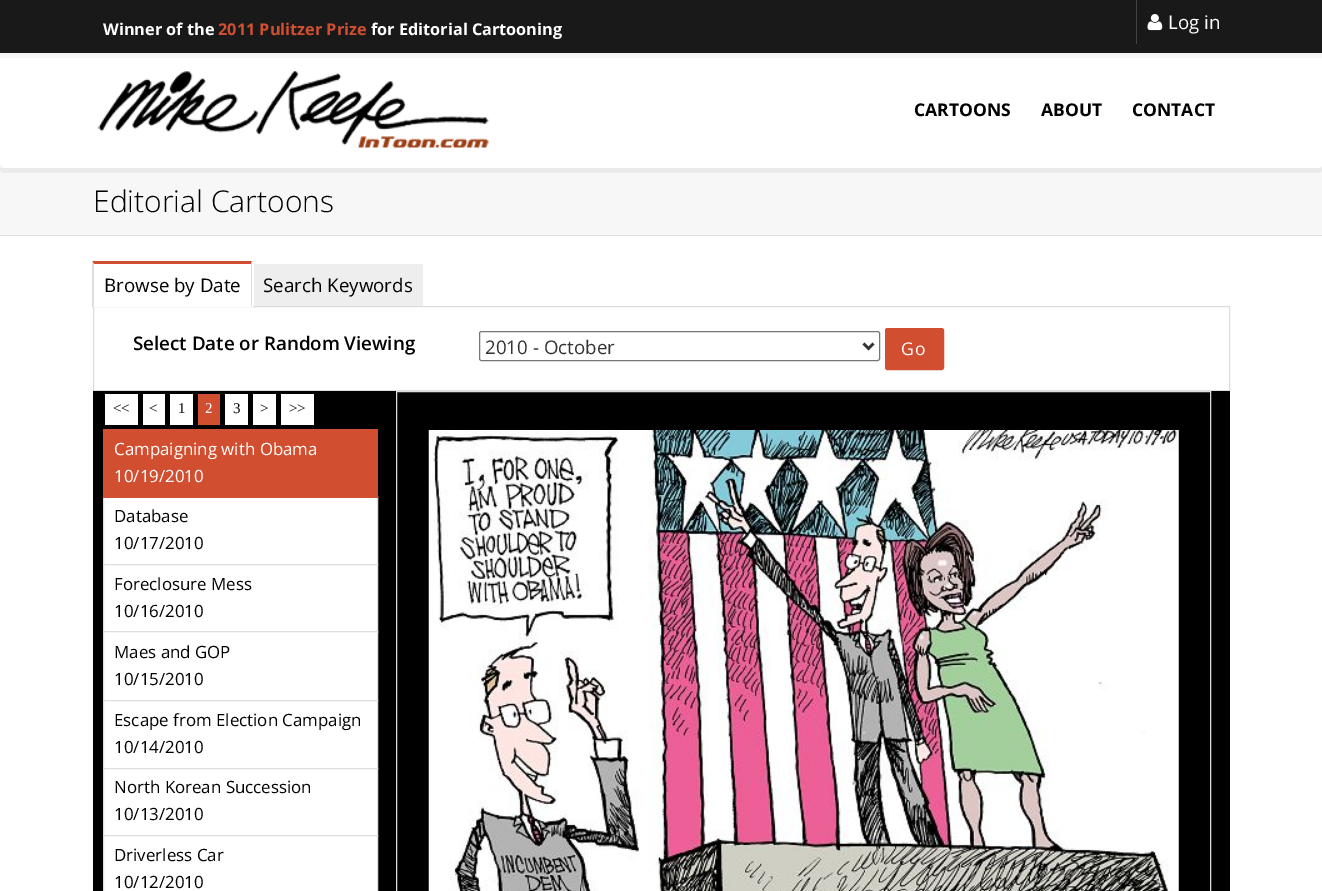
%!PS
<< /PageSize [1322 891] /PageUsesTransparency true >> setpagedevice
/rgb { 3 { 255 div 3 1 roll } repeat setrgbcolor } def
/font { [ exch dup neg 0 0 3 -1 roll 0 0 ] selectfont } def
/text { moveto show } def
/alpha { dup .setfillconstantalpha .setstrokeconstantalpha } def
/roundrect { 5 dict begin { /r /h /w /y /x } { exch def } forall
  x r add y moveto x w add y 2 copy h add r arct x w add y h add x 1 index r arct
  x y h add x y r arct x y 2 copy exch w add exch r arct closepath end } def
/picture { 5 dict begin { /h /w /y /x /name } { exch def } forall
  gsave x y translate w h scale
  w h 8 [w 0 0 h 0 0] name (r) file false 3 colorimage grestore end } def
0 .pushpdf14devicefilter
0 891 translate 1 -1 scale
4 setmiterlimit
255 255 255 rgb
0 0 1322 891 rectfill
247 247 247 rgb
0 168 1322 67 rectfill
0.05 alpha
0 0 0 rgb
0 162 moveto 0 6 rlineto 0 3 2 5 5 5 rcurveto 1313 0 rlineto 3 0 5 -2 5 -5 rcurveto 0 -158 rlineto -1 -2 rlineto 0 154 rlineto 0 3 -2 6 -4 6 rcurveto -1313 0 rlineto -3 0 -5 -3 -5 -6 rcurveto closepath fill
0.99 alpha
255 255 255 rgb
0 0 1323 168 5 roundrect fill
1 alpha
245 245 245 rgb
0 52 moveto 0 6 rlineto 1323 0 rlineto 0 -53 rlineto -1 0 rlineto 0 47 rlineto closepath fill
25 25 25 rgb
0 0 1322 53 rectfill
67 67 67 rgb
1136 0 1 44 rectfill
(img_01.rgb) 1147 14 16 17 picture
(img_02.rgb) 97 71 392 77 picture
221 221 221 rgb
0 235 1322 1 rectfill
209 79 48 rgb
92 261 moveto 160 0 rlineto -1 3 rlineto -157 0 rlineto closepath fill
221 221 221 rgb
93.5 306.5 1136 84 rectstroke
252 261 moveto 0 47 rlineto -1 -2 rlineto 0 -42 rlineto closepath fill
255 255 255 rgb
93 306 160 1 rectfill
221 221 221 rgb
92 308 moveto 0 -47 rlineto 2 3 rlineto 0 42 rlineto closepath fill
238 238 238 rgb
254 264 169 42 rectfill
118 118 118 rgb
479.5 331.5 400 29 2 roundrect stroke
51 51 51 rgb
2.5 setlinewidth
863.5 343.5 moveto 5 5 rlineto 5 -5 rlineto stroke
209 79 48 rgb
885.5 328.5 58 41 2 roundrect gsave fill grestore
1 setlinewidth
stroke
0 0 0 rgb
93 391 1137 500 rectfill
255 255 255 rgb
105 394 33 31 rectfill
143 394 22 31 rectfill
170 394 23 31 rectfill
209 79 48 rgb
198 394 22 31 rectfill
255 255 255 rgb
225 394 23 31 rectfill
253 394 23 31 rectfill
281 394 33 31 rectfill
104 498 273 66 rectfill
221 221 221 rgb
103.5 496.5 274 68 rectstroke
209 79 48 rgb
103 429 275 69 rectfill
255 255 255 rgb
104 565 273 66 rectfill
221 221 221 rgb
103.5 564.5 274 68 rectstroke
255 255 255 rgb
103.5 631.5 moveto 274 0 rlineto 0 69 rlineto -274 0 rlineto closepath gsave fill grestore
221 221 221 rgb
stroke
255 255 255 rgb
103.5 700.5 moveto 274 0 rlineto 0 68 rlineto -274 0 rlineto closepath gsave fill grestore
221 221 221 rgb
stroke
255 255 255 rgb
103.5 768.5 moveto 274 0 rlineto 0 67 rlineto -274 0 rlineto closepath gsave fill grestore
221 221 221 rgb
stroke
255 255 255 rgb
103.5 835.5 moveto 274 0 rlineto 0 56 rlineto -274 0 rlineto closepath gsave fill grestore
221 221 221 rgb
stroke
396.5 391.5 814 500 rectstroke
(img_03.rgb) 428 430 751 461 picture
/OpenSans-Bold 16.25 font
255 255 255 rgb
(Winner of the) 103 35 text
209 79 48 rgb
(2011 Pulitzer Prize) 218 35 text
255 255 255 rgb
(for Editorial Cartooning) 371 35 text
/OpenSans-Regular 18.75 font
(Log in) 1168 29 text
/OpenSans-Bold 17.5 font
0 0 0 rgb
(CARTOONS) 914 116 text
(ABOUT) 1041 116 text
(CONTACT) 1132 116 text
/OpenSans-Light 30 font
(Editorial Cartoons) 93 212 text
/OpenSans-Regular 18.75 font
(Browse by Date) 104 292 text
(Search Keywords) 263 292 text
/OpenSans-SemiBold 18.75 font
(Select Date or Random Viewing) 133 350 text
/OpenSans-Regular 18.75 font
51 51 51 rgb
(2010 - October) 485 354 text
/OpenSans-Regular 17.5 font
255 255 255 rgb
901 355 moveto 1 0 (Go) ashow
/LiberationSerif-Regular 15 font
0 0 0 rgb
(<<) 113 413 text
(<) 149 413 text
(1) 178 413 text
255 255 255 rgb
(2) 205 413 text
0 0 0 rgb
(3) 233 413 text
(>) 260 413 text
(>>) 289 413 text
/OpenSans-Regular 16.9 font
255 255 255 rgb
(Campaigning with Obama) 114 455 text
(10/19/2010) 114 482 text
0 0 0 rgb
(Database) 114 522 text
(10/17/2010) 114 549 text
(Foreclosure Mess) 114 590 text
(10/16/2010) 114 617 text
(Maes and GOP) 114 658 text
(10/15/2010) 114 685 text
(Escape from Election Campaign) 114 726 text
(10/14/2010) 114 753 text
(North Korean Succession) 114 793 text
(10/13/2010) 114 820 text
(Driverless Car) 114 861 text
(10/12/2010) 114 888 text
.poppdf14devicefilter showpage
